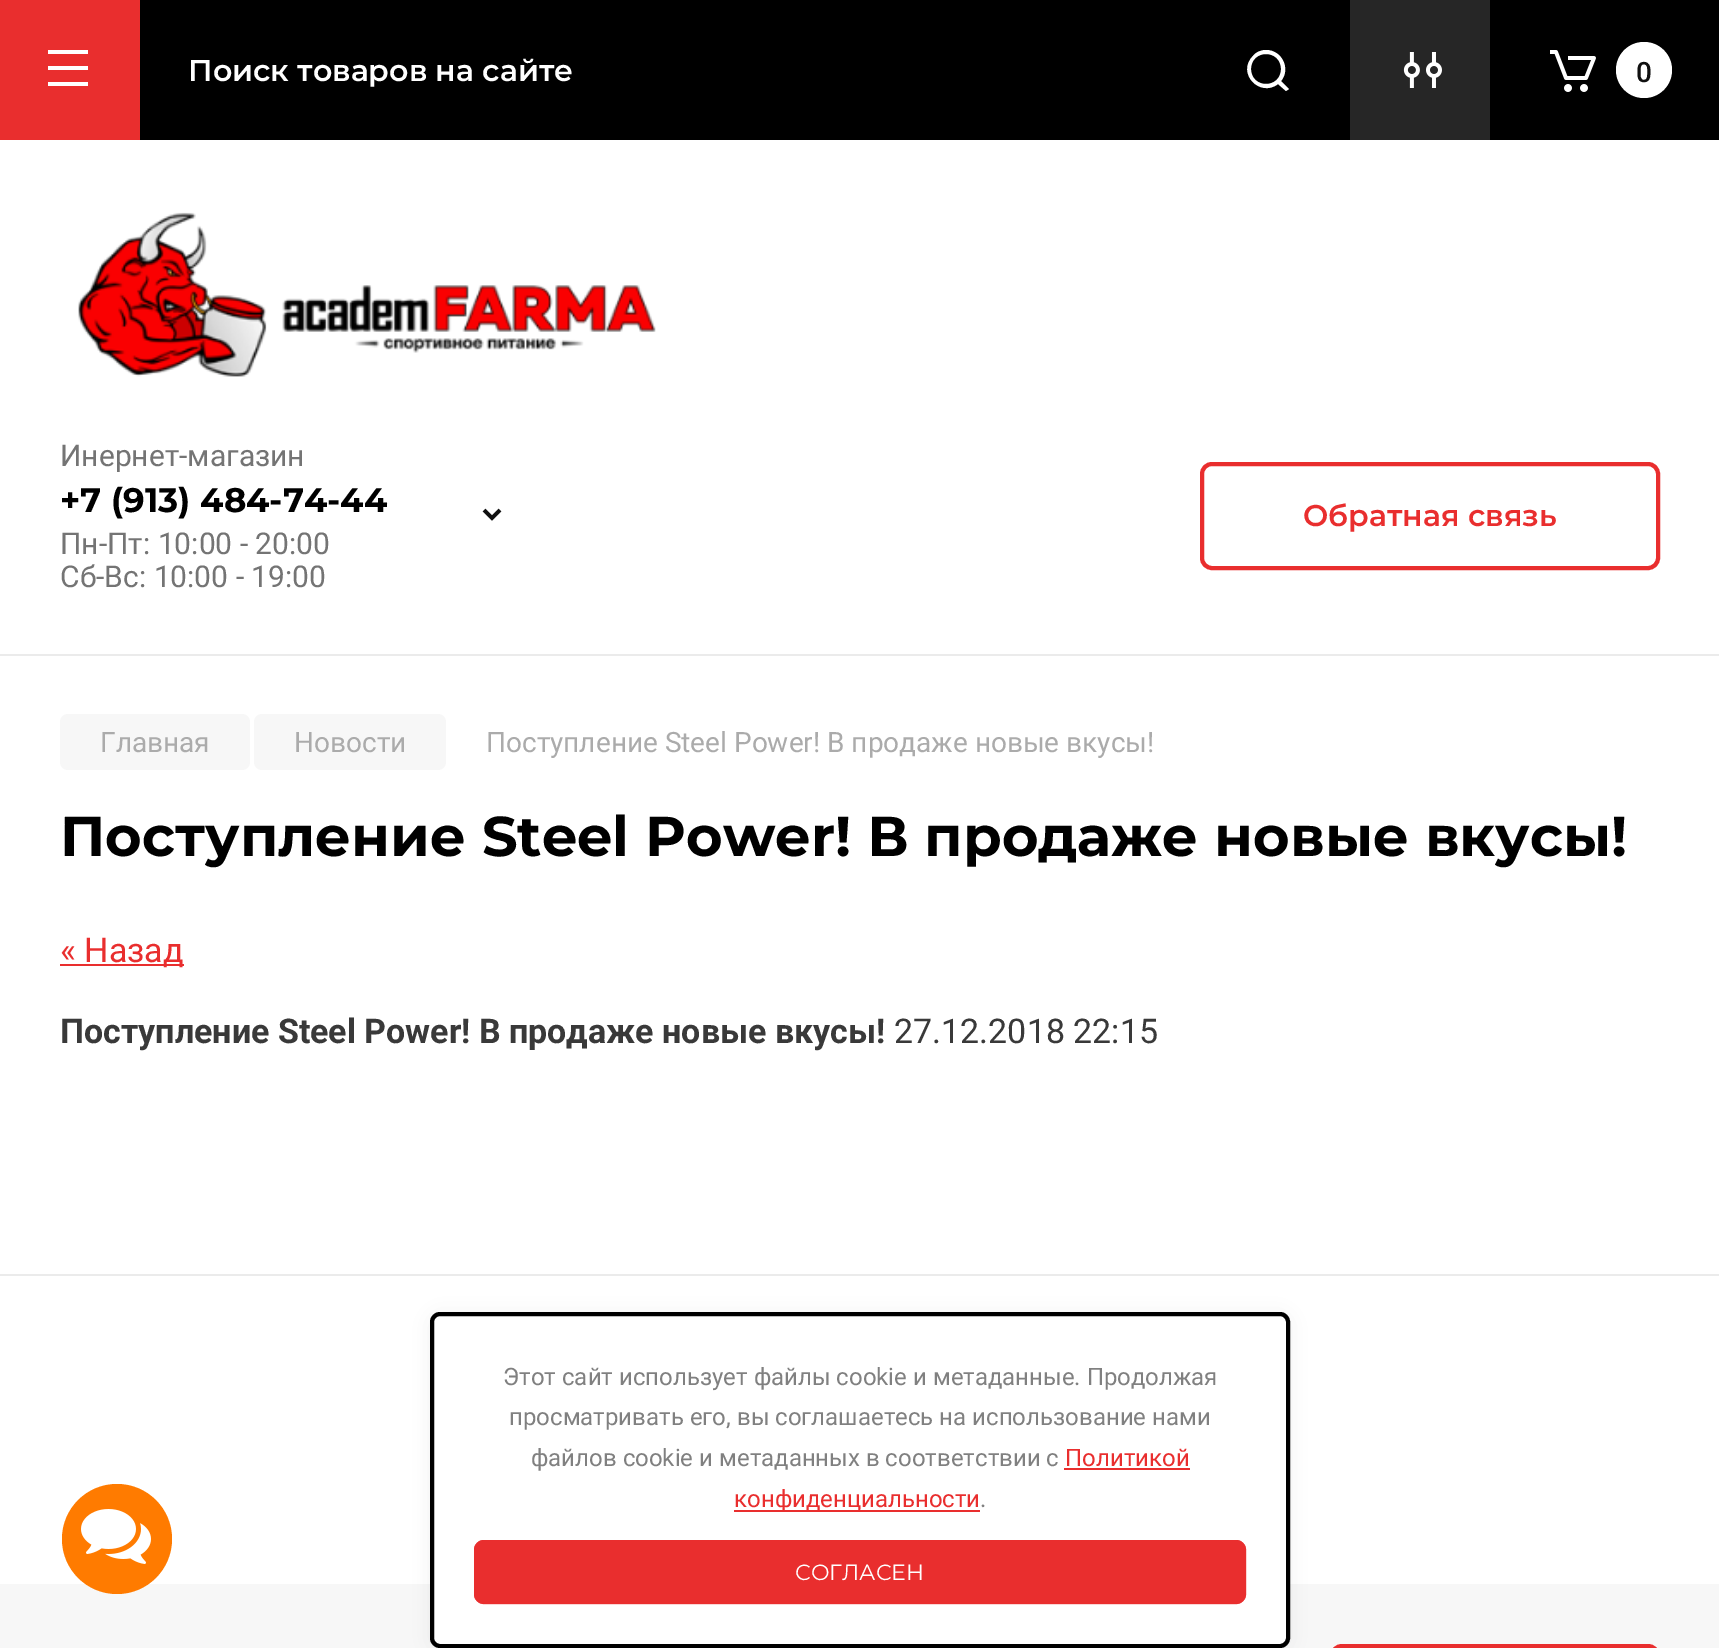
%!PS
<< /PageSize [1719 1648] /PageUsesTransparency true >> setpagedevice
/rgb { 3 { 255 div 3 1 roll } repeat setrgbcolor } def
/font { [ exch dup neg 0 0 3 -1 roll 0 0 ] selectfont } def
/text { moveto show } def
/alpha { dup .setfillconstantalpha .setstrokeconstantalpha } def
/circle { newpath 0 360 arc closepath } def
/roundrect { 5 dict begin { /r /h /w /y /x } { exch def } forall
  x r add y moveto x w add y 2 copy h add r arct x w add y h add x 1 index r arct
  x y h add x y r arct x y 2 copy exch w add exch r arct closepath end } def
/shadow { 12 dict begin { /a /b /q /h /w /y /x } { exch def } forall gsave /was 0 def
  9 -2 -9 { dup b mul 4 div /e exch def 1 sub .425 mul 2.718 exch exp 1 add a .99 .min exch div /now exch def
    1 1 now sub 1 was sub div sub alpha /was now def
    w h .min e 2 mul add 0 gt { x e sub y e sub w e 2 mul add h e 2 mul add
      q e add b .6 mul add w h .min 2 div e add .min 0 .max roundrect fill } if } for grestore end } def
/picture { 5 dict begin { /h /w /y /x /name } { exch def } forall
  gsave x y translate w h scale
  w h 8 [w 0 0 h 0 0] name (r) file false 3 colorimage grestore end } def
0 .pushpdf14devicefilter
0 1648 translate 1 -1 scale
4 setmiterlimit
0 0 0 rgb
0 0 1719 1648 rectfill
255 255 255 rgb
0 140 1719 1134 rectfill
233 46 46 rgb
0 0 140 140 rectfill
255 255 255 rgb
48 50 moveto 40 0 rlineto 0 4 rlineto -40 0 rlineto closepath 48 66 moveto 40 0 rlineto 0 4 rlineto -40 0 rlineto closepath 88 82 moveto -40 0 rlineto 0 4 rlineto 40 0 rlineto closepath fill
1266 50 moveto -5 0 -10 2 -13 6 rcurveto -17 17 7 42 25 28 rcurveto 8 7 rlineto 3 -2 rlineto -8 -8 rlineto 10 -12 1 -31 -15 -31 rcurveto closepath 1251 69 moveto 0 -20 30 -20 30 0 rcurveto 0 20 -30 20 -30 0 rcurveto closepath fill
38 38 38 rgb
1350 0 140 140 rectfill
(img_01.rgb) 1403 52 39 36 picture
(img_02.rgb) 1550 50 46 42 picture
255 255 255 rgb
1644 70 28 circle fill
235 235 235 rgb
0 654 1719 2 rectfill
(img_03.rgb) 78 212 578 165 picture
(img_04.rgb) 482 508 20 13 picture
233 46 46 rgb
4 setlinewidth
1202 464 456 104 10 roundrect stroke
235 235 235 rgb
0 1274 1719 2 rectfill
247 247 247 rgb
60 714 190 56 8 roundrect fill
254 714 192 56 8 roundrect fill
233 46 46 rgb
60 964 124 2 rectfill
255 255 255 rgb
0 1276 1719 308 rectfill
247 247 247 rgb
0 1584 1719 64 rectfill
233 46 46 rgb
1332 1646 326 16 10 roundrect stroke
255 123 0 rgb
117 1539 55 circle fill
(img_05.rgb) 81 1509 70 55 picture
0 0 0 rgb
430 1314 860 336 10 10 0.06 shadow
255 255 255 rgb
432 1314 856 332 8 roundrect gsave fill grestore
0 0 0 rgb
stroke
233 46 46 rgb
1064 1468 126 2 rectfill
734 1510 246 2 rectfill
474 1540 772 64 10 roundrect fill
0.75 alpha
476 1542 768 60 8 roundrect stroke
/Montserrat-SemiBold 30 font
1 alpha
255 255 255 rgb
(Поиск товаров на сайте) 188 81 text
/Roboto-Medium 28 font
16 16 16 rgb
(0) 1636 82 text
/Roboto-Regular 30 font
116 116 116 rgb
(Инернет-магазин) 60 466 text
/Montserrat-Bold 34 font
0 0 0 rgb
(+7 \(913\) 484-74-44) 60 512 text
/Roboto-Regular 30 font
116 116 116 rgb
(Пн-Пт: 10:00 - 20:00) 60 554 text
(Сб-Вс: 10:00 - 19:00) 60 587 text
/Montserrat-SemiBold 30 font
233 46 46 rgb
(Обратная связь) 1303 526 text
/Roboto-Regular 28 font
171 171 171 rgb
(Главная) 100 752 text
(Новости) 294 752 text
(Поступление Steel Power! В продаже новые вкусы!) 486 752 text
/Montserrat-Bold 56 font
0 0 0 rgb
(Поступление Steel Power! В продаже новые вкусы!) 60 856 text
/Roboto-Regular 34 font
233 46 46 rgb
(« Назад) 60 962 text
/Roboto-Bold 34 font
57 57 57 rgb
(Поступление Steel Power! В продаже новые вкусы!) 60 1043 text
/Roboto-Regular 34 font
(27.12.2018 22:15) 894 1043 text
/Roboto-Regular 24 font
128 128 128 rgb
(Этот сайт использует файлы cookie и метаданные. Продолжая) 503 1385 text
(просматривать его, вы соглашаетесь на использование нами) 509 1425 text
(файлов cookie и метаданных в соответствии с) 531 1466 text
233 46 46 rgb
(Политикой) 1065 1466 text
(конфиденциальности) 734 1507 text
128 128 128 rgb
(.) 980 1507 text
/Montserrat-Regular 22 font
255 255 255 rgb
(СОГЛАСЕН) 795 1580 text
.poppdf14devicefilter showpage
